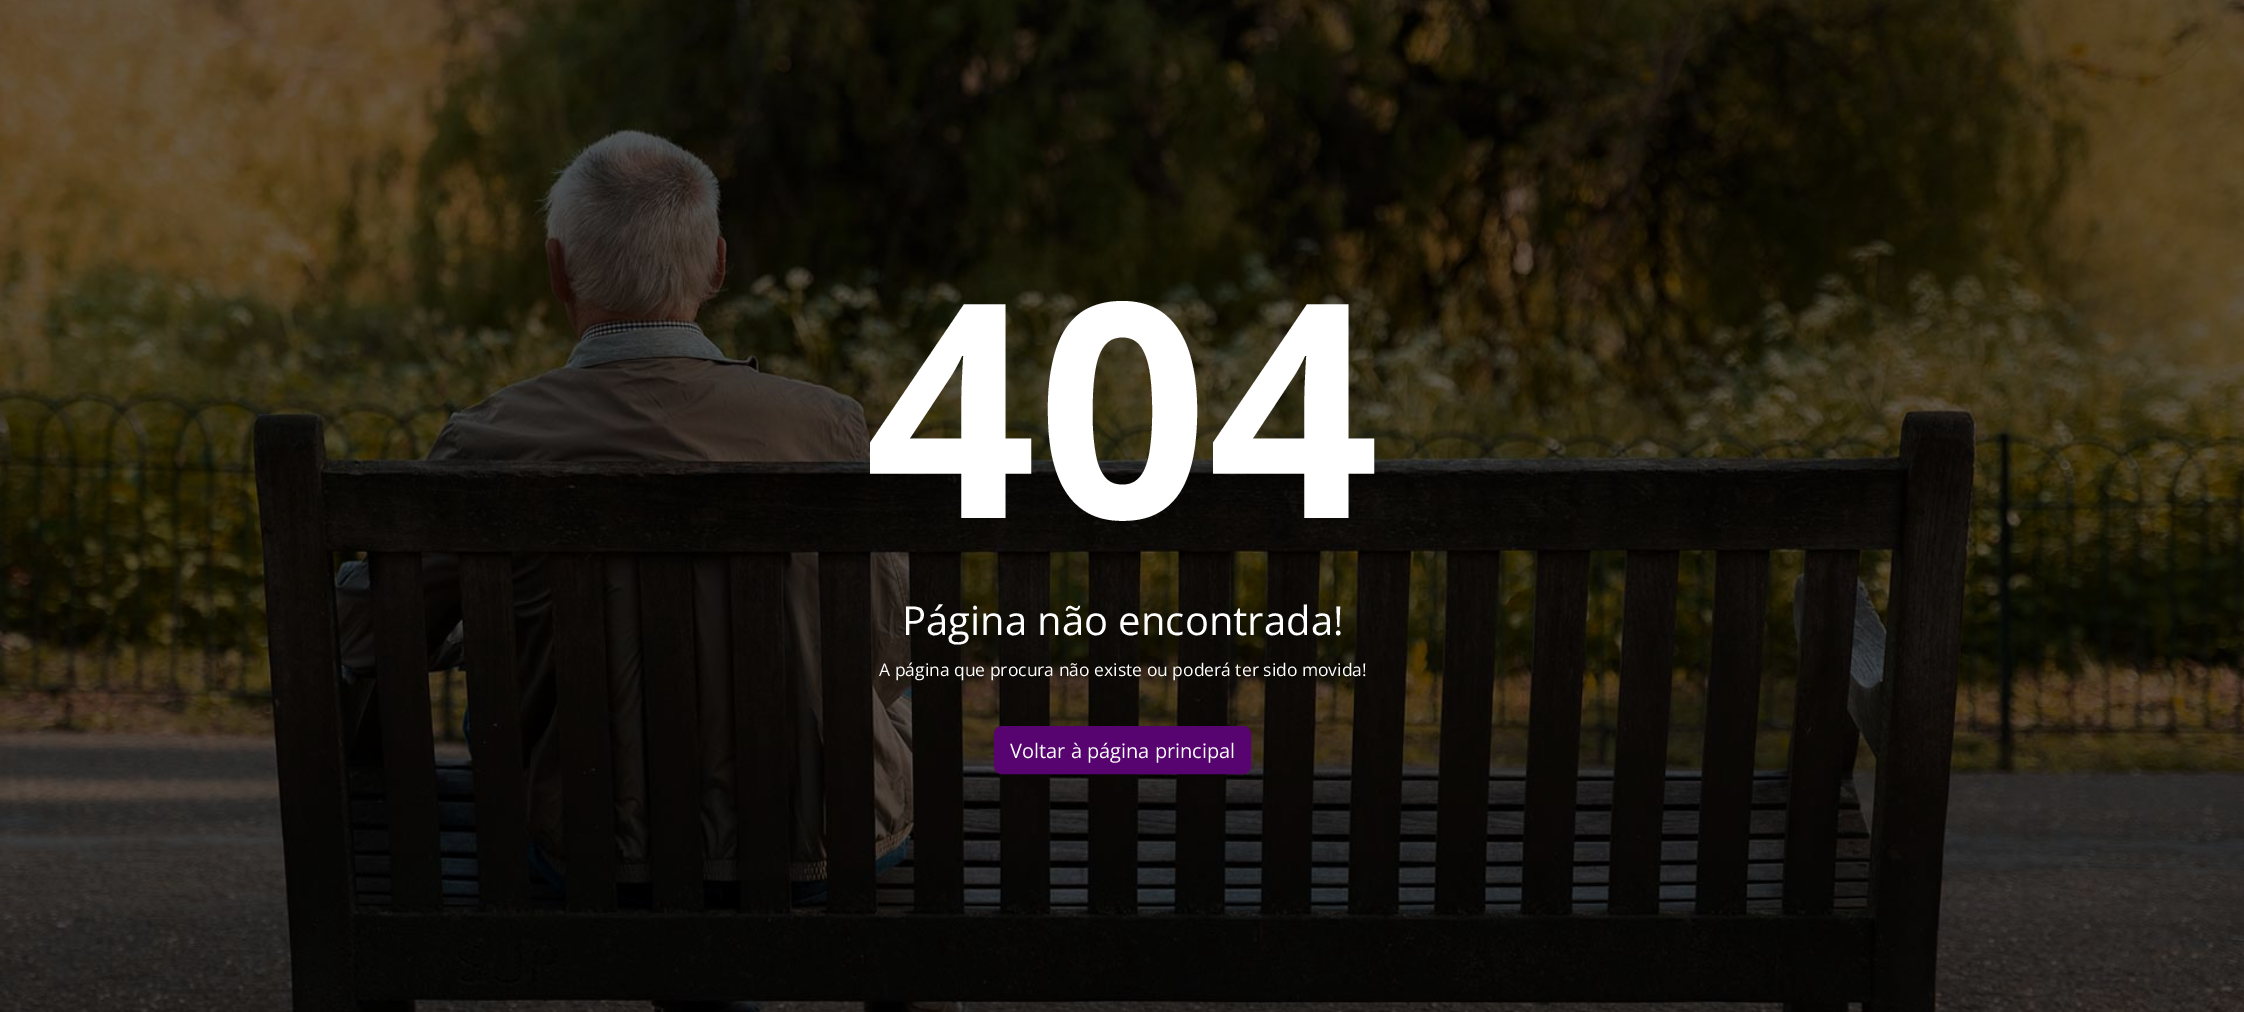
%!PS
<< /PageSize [2244 1012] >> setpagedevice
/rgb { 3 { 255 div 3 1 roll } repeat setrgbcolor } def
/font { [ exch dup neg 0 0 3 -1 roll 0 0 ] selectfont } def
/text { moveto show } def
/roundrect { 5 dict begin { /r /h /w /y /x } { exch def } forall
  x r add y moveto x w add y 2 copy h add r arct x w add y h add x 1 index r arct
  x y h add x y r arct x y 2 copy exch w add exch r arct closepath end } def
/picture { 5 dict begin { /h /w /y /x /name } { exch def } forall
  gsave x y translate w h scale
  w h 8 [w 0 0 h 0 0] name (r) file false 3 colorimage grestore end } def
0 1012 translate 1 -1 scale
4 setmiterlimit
255 255 255 rgb
0 0 2244 1012 rectfill
(img_01.rgb) 0 0 2244 1012 picture
87 4 112 rgb
994.5 726.5 256 47 7.5 roundrect gsave fill grestore
stroke
/OpenSans-Bold 300 font
255 255 255 rgb
(404) 865 518 text
/OpenSans-Regular 40 font
(Página não encontrada!) 902 635 text
/OpenSans-Regular 17.5 font
(A página que procura não existe ou poderá ter sido movida!) 879 676 text
/OpenSans-Regular 20 font
(Voltar à página principal) 1010 758 text
showpage
